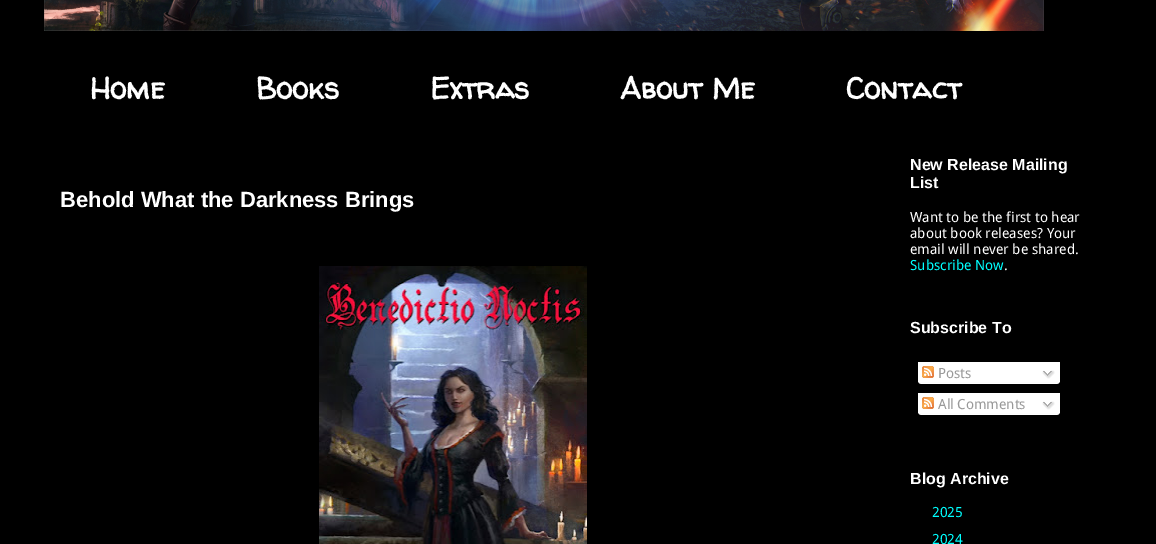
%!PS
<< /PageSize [1156 544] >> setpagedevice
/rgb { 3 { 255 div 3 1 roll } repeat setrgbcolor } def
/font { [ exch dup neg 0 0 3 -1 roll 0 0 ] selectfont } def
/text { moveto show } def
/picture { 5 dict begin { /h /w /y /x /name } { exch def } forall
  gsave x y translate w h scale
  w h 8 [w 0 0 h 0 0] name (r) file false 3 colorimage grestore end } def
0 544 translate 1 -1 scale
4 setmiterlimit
0 0 0 rgb
0 0 1156 544 rectfill
(img_01.rgb) 44 0 1000 31 picture
(img_02.rgb) 319 266 268 278 picture
255 255 255 rgb
918 362 142 20 rectfill
(img_03.rgb) 922 366 12 12 picture
(img_04.rgb) 1042 370 13 9 picture
(img_05.rgb) 918 382 142 2 picture
918 393 142 20 rectfill
(img_03.rgb) 922 397 12 12 picture
(img_04.rgb) 1042 401 13 9 picture
(img_05.rgb) 918 413 142 2 picture
/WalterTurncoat-Bold 30 font
(Home) 90 99 text
(Books) 256 99 text
(Extras) 430 99 text
(About Me) 620 99 text
(Contact) 846 99 text
/LiberationSans-Bold 22 font
(Behold What the Darkness Brings) 60 207 text
/LiberationSans-Bold 16 font
(New Release Mailing) 910 170 text
(List) 910 188 text
/DroidSans-Regular 14 font
(Want to be the first to hear) 910 222 text
(about book releases? Your) 910 238 text
(email will never be shared.) 910 254 text
0 255 255 rgb
(Subscribe Now) 910 270 text
255 255 255 rgb
(.) 1004 270 text
/LiberationSans-Bold 16 font
(Subscribe To) 910 333 text
/DroidSans-Regular 14 font
153 153 153 rgb
(Posts) 938 378 text
(All Comments) 938 409 text
/LiberationSans-Bold 16 font
255 255 255 rgb
(Blog Archive) 910 484 text
/DroidSans-Regular 14 font
0 255 255 rgb
(2025) 932 517 text
(2024) 932 544 text
showpage
